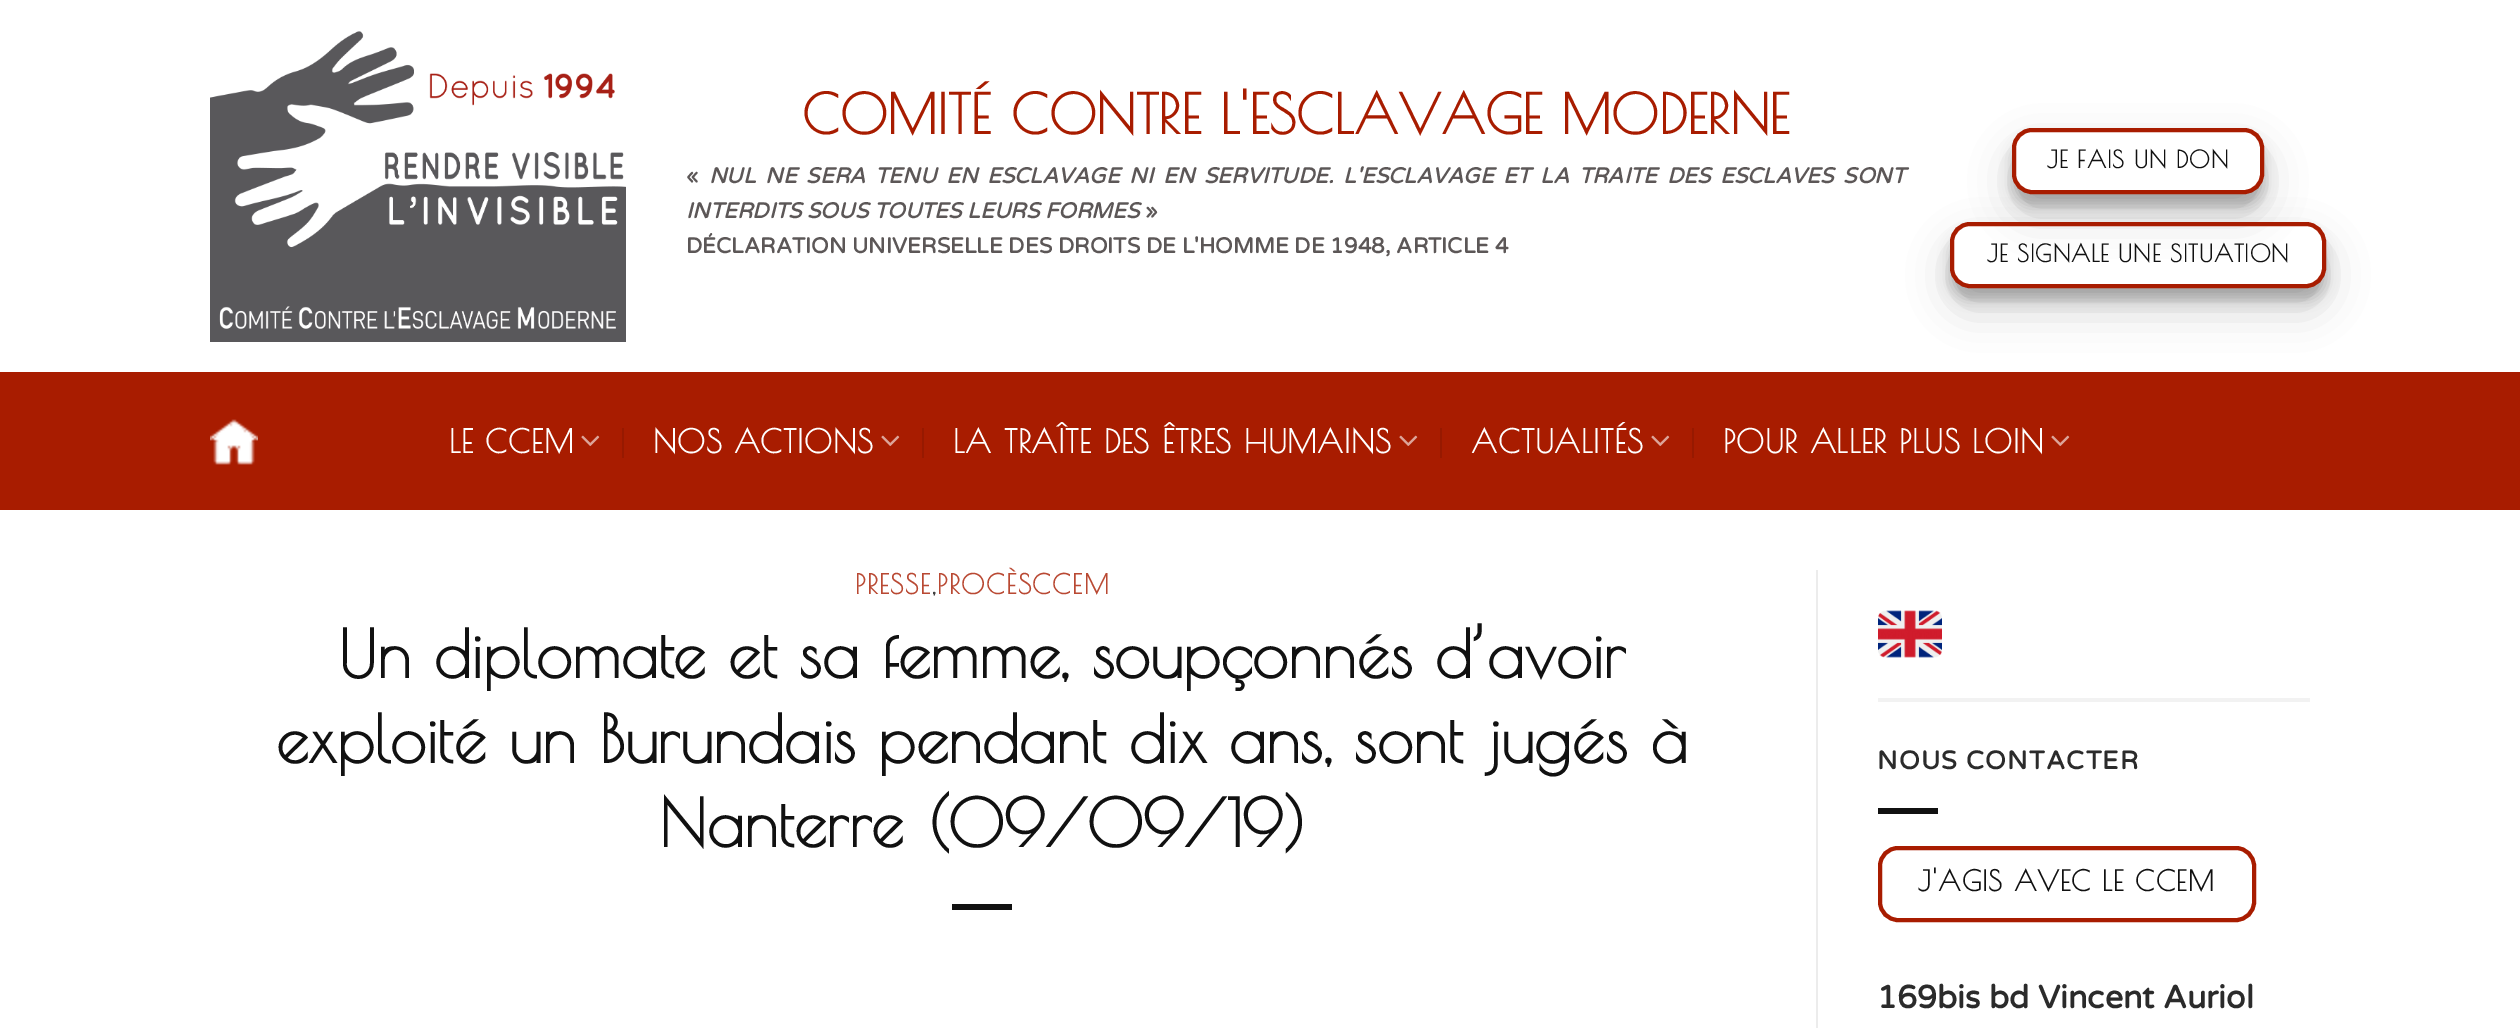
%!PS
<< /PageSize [2520 1028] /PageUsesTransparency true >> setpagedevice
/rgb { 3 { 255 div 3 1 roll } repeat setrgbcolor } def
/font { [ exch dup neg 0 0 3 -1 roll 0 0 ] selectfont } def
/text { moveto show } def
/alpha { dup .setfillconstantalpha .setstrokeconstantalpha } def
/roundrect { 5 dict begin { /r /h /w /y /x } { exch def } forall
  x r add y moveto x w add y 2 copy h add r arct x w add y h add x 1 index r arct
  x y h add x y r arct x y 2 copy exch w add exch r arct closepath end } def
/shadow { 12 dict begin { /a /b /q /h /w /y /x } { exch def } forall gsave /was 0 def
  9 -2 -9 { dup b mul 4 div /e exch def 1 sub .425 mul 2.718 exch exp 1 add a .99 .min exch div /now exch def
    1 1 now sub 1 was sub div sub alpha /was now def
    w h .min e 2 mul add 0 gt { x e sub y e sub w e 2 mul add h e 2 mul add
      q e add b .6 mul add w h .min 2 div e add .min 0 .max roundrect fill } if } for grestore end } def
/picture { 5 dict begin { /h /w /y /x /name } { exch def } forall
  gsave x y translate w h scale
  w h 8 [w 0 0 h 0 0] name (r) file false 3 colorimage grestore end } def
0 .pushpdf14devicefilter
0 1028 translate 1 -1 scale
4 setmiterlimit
255 255 255 rgb
0 0 2520 1028 rectfill
(img_01.rgb) 210 31 416 311 picture
gsave
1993 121 moveto 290 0 rlineto 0 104 rlineto -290 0 rlineto closepath 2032 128 moveto 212 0 rlineto 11 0 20 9 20 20 rcurveto 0 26 rlineto 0 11 -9 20 -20 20 rcurveto -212 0 rlineto -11 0 -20 -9 -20 -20 rcurveto 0 -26 rlineto 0 -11 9 -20 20 -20 rcurveto closepath eoclip newpath
0 0 0 rgb
2012 140 252 66 20 6 0.22 shadow
grestore
gsave
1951 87 moveto 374 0 rlineto 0 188 rlineto -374 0 rlineto closepath 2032 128 moveto 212 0 rlineto 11 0 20 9 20 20 rcurveto 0 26 rlineto 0 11 -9 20 -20 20 rcurveto -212 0 rlineto -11 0 -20 -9 -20 -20 rcurveto 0 -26 rlineto 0 -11 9 -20 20 -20 rcurveto closepath eoclip newpath
0 0 0 rgb
2012 148 252 66 20 20 0.19 shadow
grestore
168 28 0 rgb
4 setlinewidth
2014 130 248 62 18 roundrect stroke
gsave
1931 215 moveto 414 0 rlineto 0 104 rlineto -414 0 rlineto closepath 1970 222 moveto 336 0 rlineto 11 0 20 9 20 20 rcurveto 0 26 rlineto 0 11 -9 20 -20 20 rcurveto -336 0 rlineto -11 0 -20 -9 -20 -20 rcurveto 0 -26 rlineto 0 -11 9 -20 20 -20 rcurveto closepath eoclip newpath
0 0 0 rgb
1950 234 376 66 20 6 0.22 shadow
grestore
gsave
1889 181 moveto 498 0 rlineto 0 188 rlineto -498 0 rlineto closepath 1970 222 moveto 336 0 rlineto 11 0 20 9 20 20 rcurveto 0 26 rlineto 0 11 -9 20 -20 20 rcurveto -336 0 rlineto -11 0 -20 -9 -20 -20 rcurveto 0 -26 rlineto 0 -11 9 -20 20 -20 rcurveto closepath eoclip newpath
0 0 0 rgb
1950 242 376 66 20 20 0.19 shadow
grestore
1952 224 372 62 18 roundrect stroke
0 372 2520 138 rectfill
(img_02.rgb) 210 419 48 46 picture
(img_03.rgb) 581 435 19 11 picture
151 25 0 rgb
622 428 2 30 rectfill
(img_03.rgb) 881 435 19 11 picture
922 428 2 30 rectfill
(img_03.rgb) 1399 435 19 11 picture
1440 428 2 30 rectfill
(img_03.rgb) 1651 435 19 11 picture
1692 428 2 30 rectfill
(img_03.rgb) 2051 435 19 11 picture
17 17 17 rgb
952 904 60 6 rectfill
236 236 236 rgb
1816 570 2 458 rectfill
(img_04.rgb) 1878 610 64 48 picture
242 242 242 rgb
1878 698 432 4 rectfill
17 17 17 rgb
1878 808 60 6 rectfill
168 28 0 rgb
1880 848 374 72 18 roundrect stroke
/PoiretOne-Bold 54.4 font
(COMITÉ CONTRE L'ESCLAVAGE MODERNE) 802 134 text
/VarelaRound-Bold 21.75 font
92 87 87 rgb
(«) 686 183 text
/VarelaRound-BoldItalic 21.75 font
709 183 moveto 4.1 0 32 (NUL NE SERA TENU EN ESCLAVAGE NI EN SERVITUDE. L'ESCLAVAGE ET LA TRAITE DES ESCLAVES SONT) widthshow
(INTERDITS SOUS TOUTES LEURS FORMES) 686 218 text
/VarelaRound-Bold 21.75 font
(») 1145 218 text
(DÉCLARATION UNIVERSELLE DES DROITS DE L'HOMME DE 1948, ARTICLE 4) 686 253 text
/PoiretOne-Bold 23.75 font
17 17 17 rgb
2047 168 moveto 0.75 0 (JE FAIS UN DON) ashow
1987 262 moveto 0.75 0 (JE SIGNALE UNE SITUATION) ashow
/PoiretOne-Bold 32 font
255 255 255 rgb
449 453 moveto 0.65 0 (LE CCEM) ashow
653 453 moveto 0.65 0 (NOS ACTIONS) ashow
953 453 moveto 0.65 0 (LA TRAÎTE DES ÊTRES HUMAINS) ashow
1471 453 moveto 0.65 0 (ACTUALITÉS) ashow
1723 453 moveto 0.65 0 (POUR ALLER PLUS LOIN) ashow
/PoiretOne-Bold 27 font
185 73 51 rgb
855 594 moveto 1.25 0 (PRESSE) ashow
65 65 65 rgb
932 594 moveto 1.25 0 (,) ashow
185 73 51 rgb
937 594 moveto 1.25 0 (PROCÈSCCEM) ashow
/PoiretOne-Bold 65.25 font
17 17 17 rgb
(Un diplomate et sa femme, soupçonnés d’avoir) 338 678 text
(exploité un Burundais pendant dix ans, sont jugés à) 276 763 text
(Nanterre \(09/09/19\)) 659 847 text
/VarelaRound-Bold 25.6 font
43 43 43 rgb
1877 769 moveto 1.25 0 (NOUS CONTACTER) ashow
/PoiretOne-Bold 28 font
17 17 17 rgb
1918 891 moveto 0.9 0 (J'AGIS AVEC LE CCEM) ashow
/VarelaRound-Bold 32 font
43 43 43 rgb
(169bis bd Vincent Auriol) 1877 1008 text
.poppdf14devicefilter showpage
